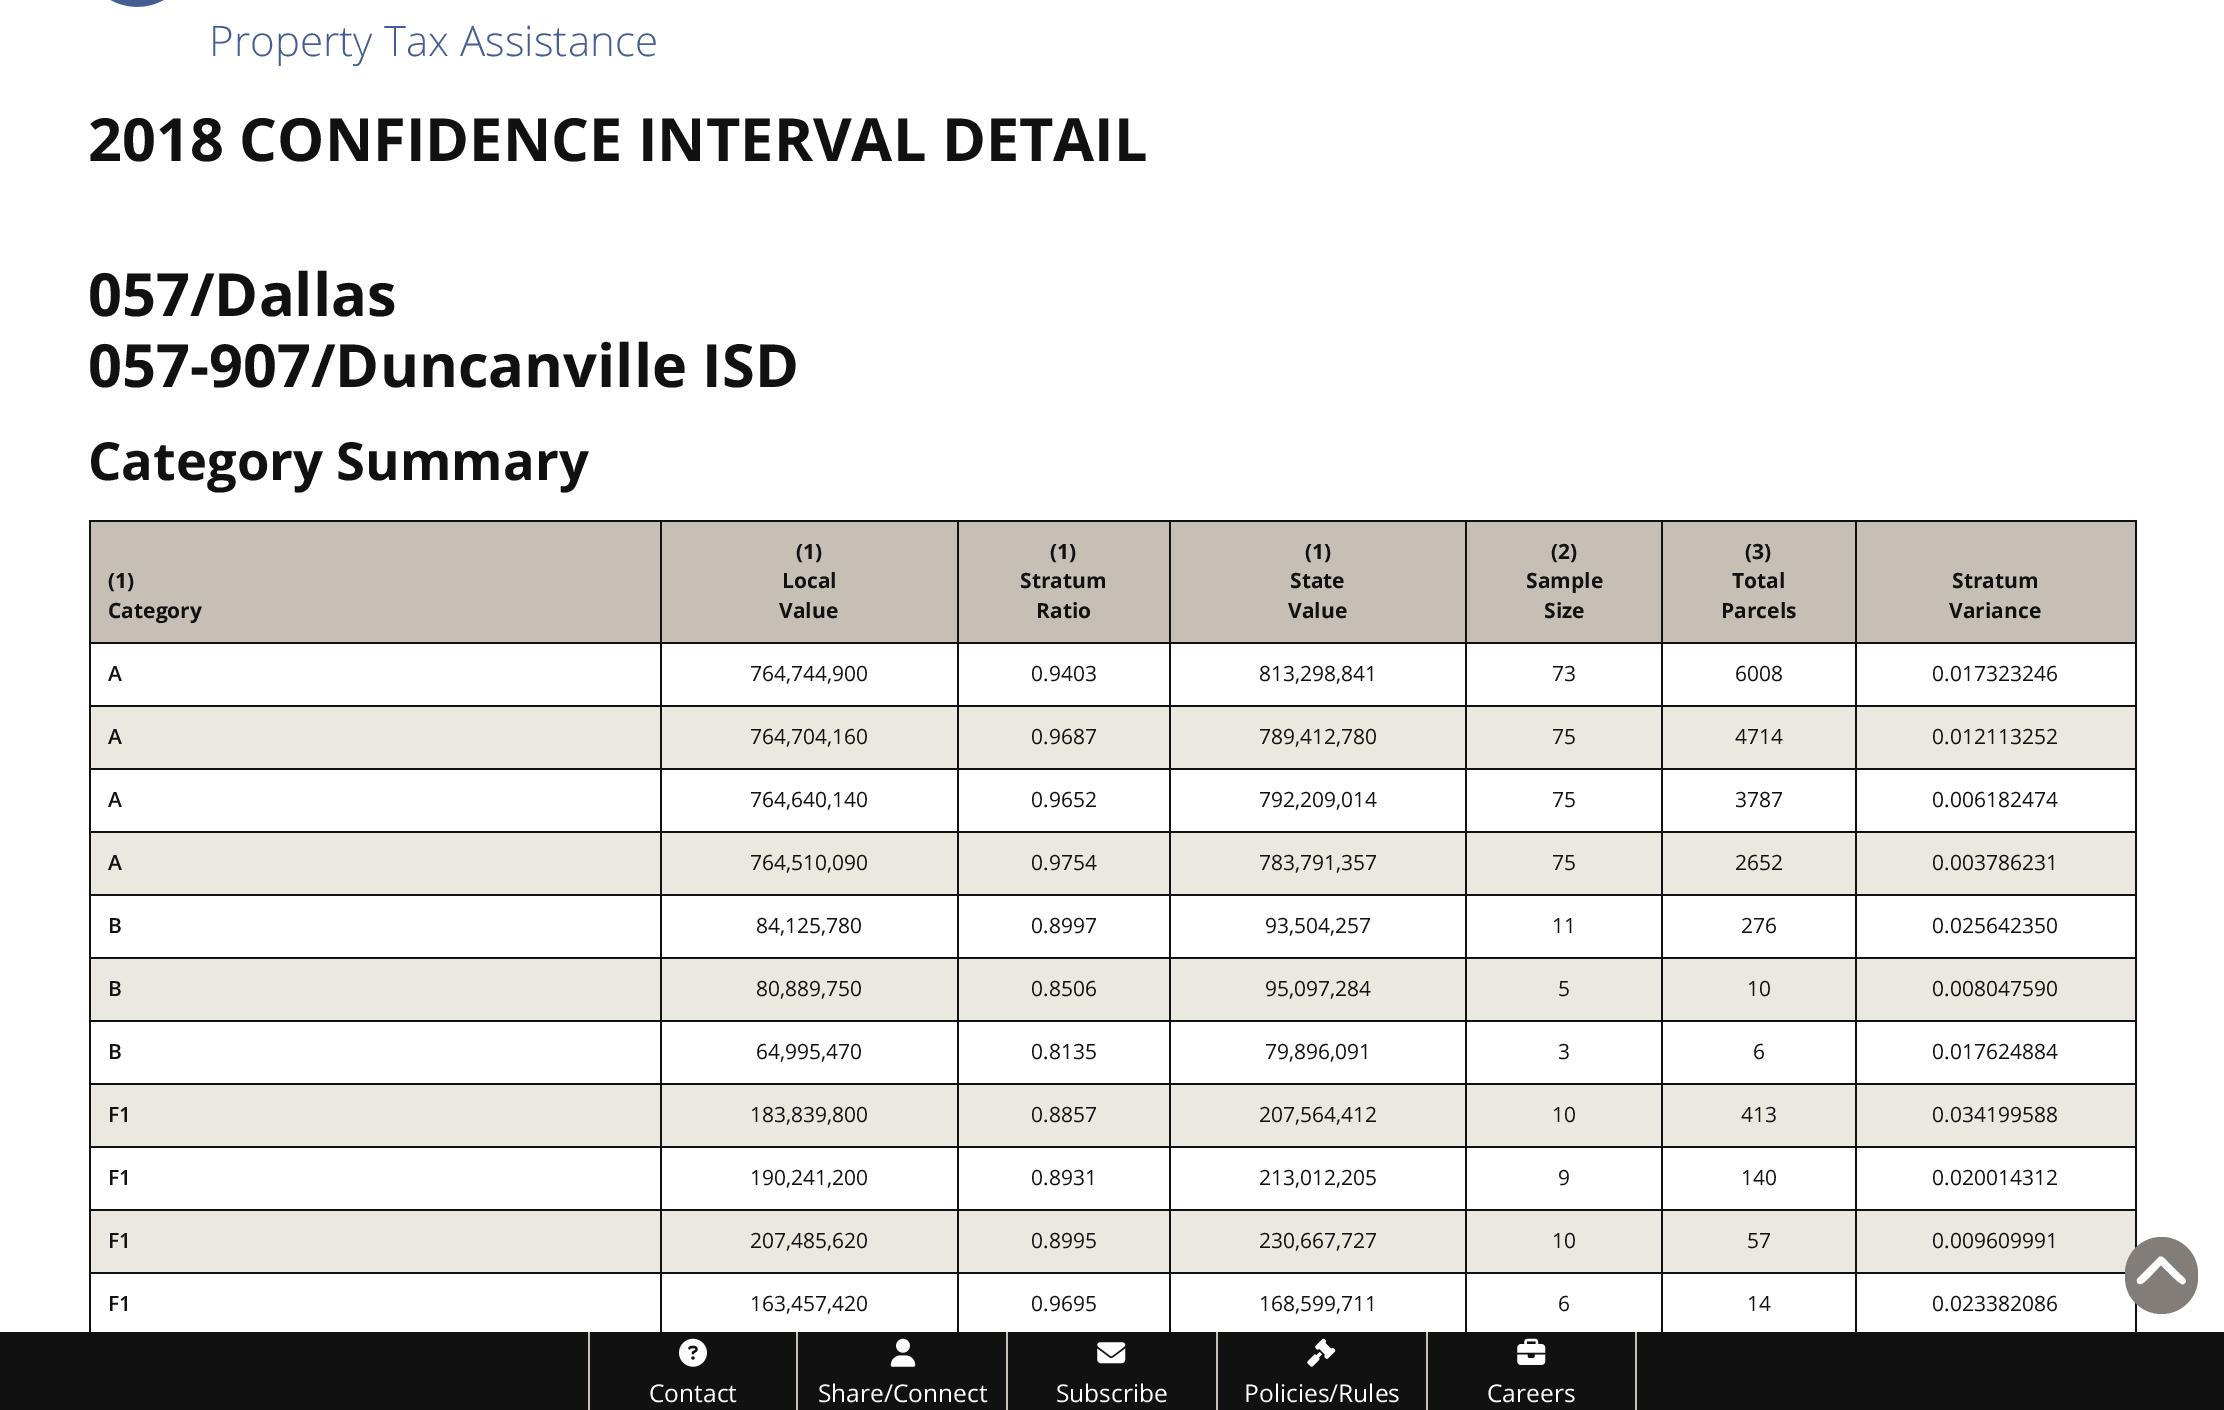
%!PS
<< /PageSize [2224 1410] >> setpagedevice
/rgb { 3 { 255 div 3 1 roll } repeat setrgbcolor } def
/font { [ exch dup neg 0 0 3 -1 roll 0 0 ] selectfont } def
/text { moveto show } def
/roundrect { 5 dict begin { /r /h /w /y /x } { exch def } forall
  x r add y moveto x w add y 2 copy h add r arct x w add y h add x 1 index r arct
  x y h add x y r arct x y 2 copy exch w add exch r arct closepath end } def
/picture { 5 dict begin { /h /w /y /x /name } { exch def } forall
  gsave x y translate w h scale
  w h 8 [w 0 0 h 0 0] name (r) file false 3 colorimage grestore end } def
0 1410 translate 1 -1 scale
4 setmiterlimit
255 255 255 rgb
0 0 2224 1410 rectfill
(img_01.rgb) 110 0 54 7 picture
197 191 181 rgb
91 522 2044 120 rectfill
17 17 17 rgb
1855 520 282 2 rectfill
1855 642 282 2 rectfill
1855 705 282 2 rectfill
235 232 224 rgb
91 707 2044 61 rectfill
17 17 17 rgb
1855 768 282 2 rectfill
1855 831 282 2 rectfill
235 232 224 rgb
91 833 2044 61 rectfill
17 17 17 rgb
1855 894 282 2 rectfill
1855 957 282 2 rectfill
235 232 224 rgb
91 959 2044 61 rectfill
17 17 17 rgb
1855 1020 282 2 rectfill
1855 1083 282 2 rectfill
235 232 224 rgb
91 1085 2044 61 rectfill
17 17 17 rgb
1855 1146 282 2 rectfill
1855 1209 282 2 rectfill
235 232 224 rgb
91 1211 2044 61 rectfill
17 17 17 rgb
1855 1272 271 2 rectfill
1855 1272 2 65 rectfill
1661 1272 196 2 rectfill
1855 1209 2 65 rectfill
1661 1209 196 2 rectfill
1855 1146 2 65 rectfill
1661 1146 196 2 rectfill
1855 1083 2 65 rectfill
1661 1083 196 2 rectfill
1855 1020 2 65 rectfill
1661 1020 196 2 rectfill
1855 957 2 65 rectfill
1661 957 196 2 rectfill
1855 894 2 65 rectfill
1661 894 196 2 rectfill
1855 831 2 65 rectfill
1661 831 196 2 rectfill
1855 768 2 65 rectfill
1661 768 196 2 rectfill
1855 705 2 65 rectfill
1661 705 196 2 rectfill
1855 642 2 65 rectfill
1661 642 196 2 rectfill
1855 520 2 124 rectfill
1661 520 196 2 rectfill
1661 1272 2 65 rectfill
1465 1272 198 2 rectfill
1661 1209 2 65 rectfill
1465 1209 198 2 rectfill
1661 1146 2 65 rectfill
1465 1146 198 2 rectfill
1661 1083 2 65 rectfill
1465 1083 198 2 rectfill
1661 1020 2 65 rectfill
1465 1020 198 2 rectfill
1661 957 2 65 rectfill
1465 957 198 2 rectfill
1661 894 2 65 rectfill
1465 894 198 2 rectfill
1661 831 2 65 rectfill
1465 831 198 2 rectfill
1661 768 2 65 rectfill
1465 768 198 2 rectfill
1661 705 2 65 rectfill
1465 705 198 2 rectfill
1661 642 2 65 rectfill
1465 642 198 2 rectfill
1661 520 2 124 rectfill
1465 520 198 2 rectfill
1465 1272 2 65 rectfill
1169 1272 298 2 rectfill
1465 1209 2 65 rectfill
1169 1209 298 2 rectfill
1465 1146 2 65 rectfill
1169 1146 298 2 rectfill
1465 1083 2 65 rectfill
1169 1083 298 2 rectfill
1465 1020 2 65 rectfill
1169 1020 298 2 rectfill
1465 957 2 65 rectfill
1169 957 298 2 rectfill
1465 894 2 65 rectfill
1169 894 298 2 rectfill
1465 831 2 65 rectfill
1169 831 298 2 rectfill
1465 768 2 65 rectfill
1169 768 298 2 rectfill
1465 705 2 65 rectfill
1169 705 298 2 rectfill
1465 642 2 65 rectfill
1169 642 298 2 rectfill
1465 520 2 124 rectfill
1169 520 298 2 rectfill
1169 1272 2 65 rectfill
957 1272 214 2 rectfill
1169 1209 2 65 rectfill
957 1209 214 2 rectfill
1169 1146 2 65 rectfill
957 1146 214 2 rectfill
1169 1083 2 65 rectfill
957 1083 214 2 rectfill
1169 1020 2 65 rectfill
957 1020 214 2 rectfill
1169 957 2 65 rectfill
957 957 214 2 rectfill
1169 894 2 65 rectfill
957 894 214 2 rectfill
1169 831 2 65 rectfill
957 831 214 2 rectfill
1169 768 2 65 rectfill
957 768 214 2 rectfill
1169 705 2 65 rectfill
957 705 214 2 rectfill
1169 642 2 65 rectfill
957 642 214 2 rectfill
1169 520 2 124 rectfill
957 520 214 2 rectfill
957 1272 2 65 rectfill
660 1272 299 2 rectfill
957 1209 2 65 rectfill
660 1209 299 2 rectfill
957 1146 2 65 rectfill
660 1146 299 2 rectfill
957 1083 2 65 rectfill
660 1083 299 2 rectfill
957 1020 2 65 rectfill
660 1020 299 2 rectfill
957 957 2 65 rectfill
660 957 299 2 rectfill
957 894 2 65 rectfill
660 894 299 2 rectfill
957 831 2 65 rectfill
660 831 299 2 rectfill
957 768 2 65 rectfill
660 768 299 2 rectfill
957 705 2 65 rectfill
660 705 299 2 rectfill
957 642 2 65 rectfill
660 642 299 2 rectfill
957 520 2 124 rectfill
660 520 299 2 rectfill
660 1272 2 65 rectfill
89 1272 573 2 rectfill
660 1209 2 65 rectfill
89 1209 573 2 rectfill
660 1146 2 65 rectfill
89 1146 573 2 rectfill
660 1083 2 65 rectfill
89 1083 573 2 rectfill
660 1020 2 65 rectfill
89 1020 573 2 rectfill
660 957 2 65 rectfill
89 957 573 2 rectfill
660 894 2 65 rectfill
89 894 573 2 rectfill
660 831 2 65 rectfill
89 831 573 2 rectfill
660 768 2 65 rectfill
89 768 573 2 rectfill
660 705 2 65 rectfill
89 705 573 2 rectfill
660 642 2 65 rectfill
89 642 573 2 rectfill
660 520 2 124 rectfill
89 520 573 2 rectfill
89 1272 2 65 rectfill
89 1209 2 65 rectfill
89 1146 2 65 rectfill
89 1083 2 65 rectfill
89 1020 2 65 rectfill
89 957 2 65 rectfill
89 894 2 65 rectfill
89 831 2 65 rectfill
89 768 2 65 rectfill
89 705 2 65 rectfill
89 642 2 65 rectfill
89 520 2 124 rectfill
2135 1209 2 40 rectfill
2135 1146 2 65 rectfill
2135 1083 2 65 rectfill
2135 1020 2 65 rectfill
2135 957 2 65 rectfill
2135 894 2 65 rectfill
2135 831 2 65 rectfill
2135 768 2 65 rectfill
2135 705 2 65 rectfill
2135 642 2 65 rectfill
2135 520 2 124 rectfill
2135 1302 2 35 rectfill
131 125 122 rgb
2125 1237 73 77 36.5 roundrect fill
255 255 255 rgb
2159 1257 moveto 3 -2 6 2 8 4 rcurveto 14 14 rlineto 2 2 7 5 4 8 rcurveto -1 1 -2 2 -3 1 rcurveto -3 0 -18 -16 -21 -19 rcurveto -3 3 -17 19 -20 19 rcurveto -3 1 -6 -3 -3 -6 rcurveto closepath fill
17 17 17 rgb
0 1332 2224 78 rectfill
197 191 181 rgb
796 1332 2 78 rectfill
588 1332 2 78 rectfill
(img_02.rgb) 679 1338 28 29 picture
1006 1332 2 78 rectfill
(img_03.rgb) 890 1338 26 29 picture
1216 1332 2 78 rectfill
(img_04.rgb) 1097 1342 29 22 picture
1426 1332 2 78 rectfill
(img_05.rgb) 1307 1338 29 29 picture
1635 1332 2 78 rectfill
(img_06.rgb) 1517 1338 29 27 picture
/OpenSans-Light 42.1 font
68 93 146 rgb
(Property Tax Assistance) 209 56 text
/OpenSans-Bold 59.5 font
17 17 17 rgb
(2018 CONFIDENCE INTERVAL DETAIL) 88 161 text
(057/Dallas) 88 316 text
(057-907/Duncanville ISD) 88 387 text
/OpenSans-Bold 52.5 font
(Category Summary) 88 480 text
/OpenSans-Bold 21 font
(\(1\)) 108 588 text
(Category) 108 618 text
(\(1\)) 796 559 text
(Local) 782 588 text
(Value) 779 618 text
(\(1\)) 1050 559 text
(Stratum) 1020 588 text
(Ratio) 1036 618 text
(\(1\)) 1305 559 text
(State) 1290 588 text
(Value) 1288 618 text
(\(2\)) 1551 559 text
(Sample) 1526 588 text
(Size) 1544 618 text
(\(3\)) 1745 559 text
(Total) 1732 588 text
(Parcels) 1721 618 text
(Stratum) 1952 588 text
(Variance) 1949 618 text
/OpenSans-SemiBold 21 font
(A) 108 681 text
/OpenSans-Regular 21 font
(764,744,900) 750 681 text
(0.9403) 1031 681 text
(813,298,841) 1259 681 text
(73) 1552 681 text
(6008) 1735 681 text
(0.017323246) 1932 681 text
/OpenSans-SemiBold 21 font
(A) 108 744 text
/OpenSans-Regular 21 font
(764,704,160) 750 744 text
(0.9687) 1031 744 text
(789,412,780) 1259 744 text
(75) 1552 744 text
(4714) 1735 744 text
(0.012113252) 1932 744 text
/OpenSans-SemiBold 21 font
(A) 108 807 text
/OpenSans-Regular 21 font
(764,640,140) 750 807 text
(0.9652) 1031 807 text
(792,209,014) 1259 807 text
(75) 1552 807 text
(3787) 1735 807 text
(0.006182474) 1932 807 text
/OpenSans-SemiBold 21 font
(A) 108 870 text
/OpenSans-Regular 21 font
(764,510,090) 750 870 text
(0.9754) 1031 870 text
(783,791,357) 1259 870 text
(75) 1552 870 text
(2652) 1735 870 text
(0.003786231) 1932 870 text
/OpenSans-SemiBold 21 font
(B) 108 933 text
/OpenSans-Regular 21 font
(84,125,780) 756 933 text
(0.8997) 1031 933 text
(93,504,257) 1265 933 text
(11) 1552 933 text
(276) 1741 933 text
(0.025642350) 1932 933 text
/OpenSans-SemiBold 21 font
(B) 108 996 text
/OpenSans-Regular 21 font
(80,889,750) 756 996 text
(0.8506) 1031 996 text
(95,097,284) 1265 996 text
(5) 1558 996 text
(10) 1747 996 text
(0.008047590) 1932 996 text
/OpenSans-SemiBold 21 font
(B) 108 1059 text
/OpenSans-Regular 21 font
(64,995,470) 756 1059 text
(0.8135) 1031 1059 text
(79,896,091) 1265 1059 text
(3) 1558 1059 text
(6) 1753 1059 text
(0.017624884) 1932 1059 text
/OpenSans-SemiBold 21 font
(F1) 108 1122 text
/OpenSans-Regular 21 font
(183,839,800) 750 1122 text
(0.8857) 1031 1122 text
(207,564,412) 1259 1122 text
(10) 1552 1122 text
(413) 1741 1122 text
(0.034199588) 1932 1122 text
/OpenSans-SemiBold 21 font
(F1) 108 1185 text
/OpenSans-Regular 21 font
(190,241,200) 750 1185 text
(0.8931) 1031 1185 text
(213,012,205) 1259 1185 text
(9) 1558 1185 text
(140) 1741 1185 text
(0.020014312) 1932 1185 text
/OpenSans-SemiBold 21 font
(F1) 108 1248 text
/OpenSans-Regular 21 font
(207,485,620) 750 1248 text
(0.8995) 1031 1248 text
(230,667,727) 1259 1248 text
(10) 1552 1248 text
(57) 1747 1248 text
(0.009609991) 1932 1248 text
/OpenSans-SemiBold 21 font
(F1) 108 1311 text
/OpenSans-Regular 21 font
(163,457,420) 750 1311 text
(0.9695) 1031 1311 text
(168,599,711) 1259 1311 text
(6) 1558 1311 text
(14) 1747 1311 text
(0.023382086) 1932 1311 text
/OpenSans-Regular 24.5 font
255 255 255 rgb
(Contact) 649 1402 text
(Share/Connect) 818 1402 text
(Subscribe) 1056 1402 text
(Policies/Rules) 1244 1402 text
(Careers) 1487 1402 text
showpage
